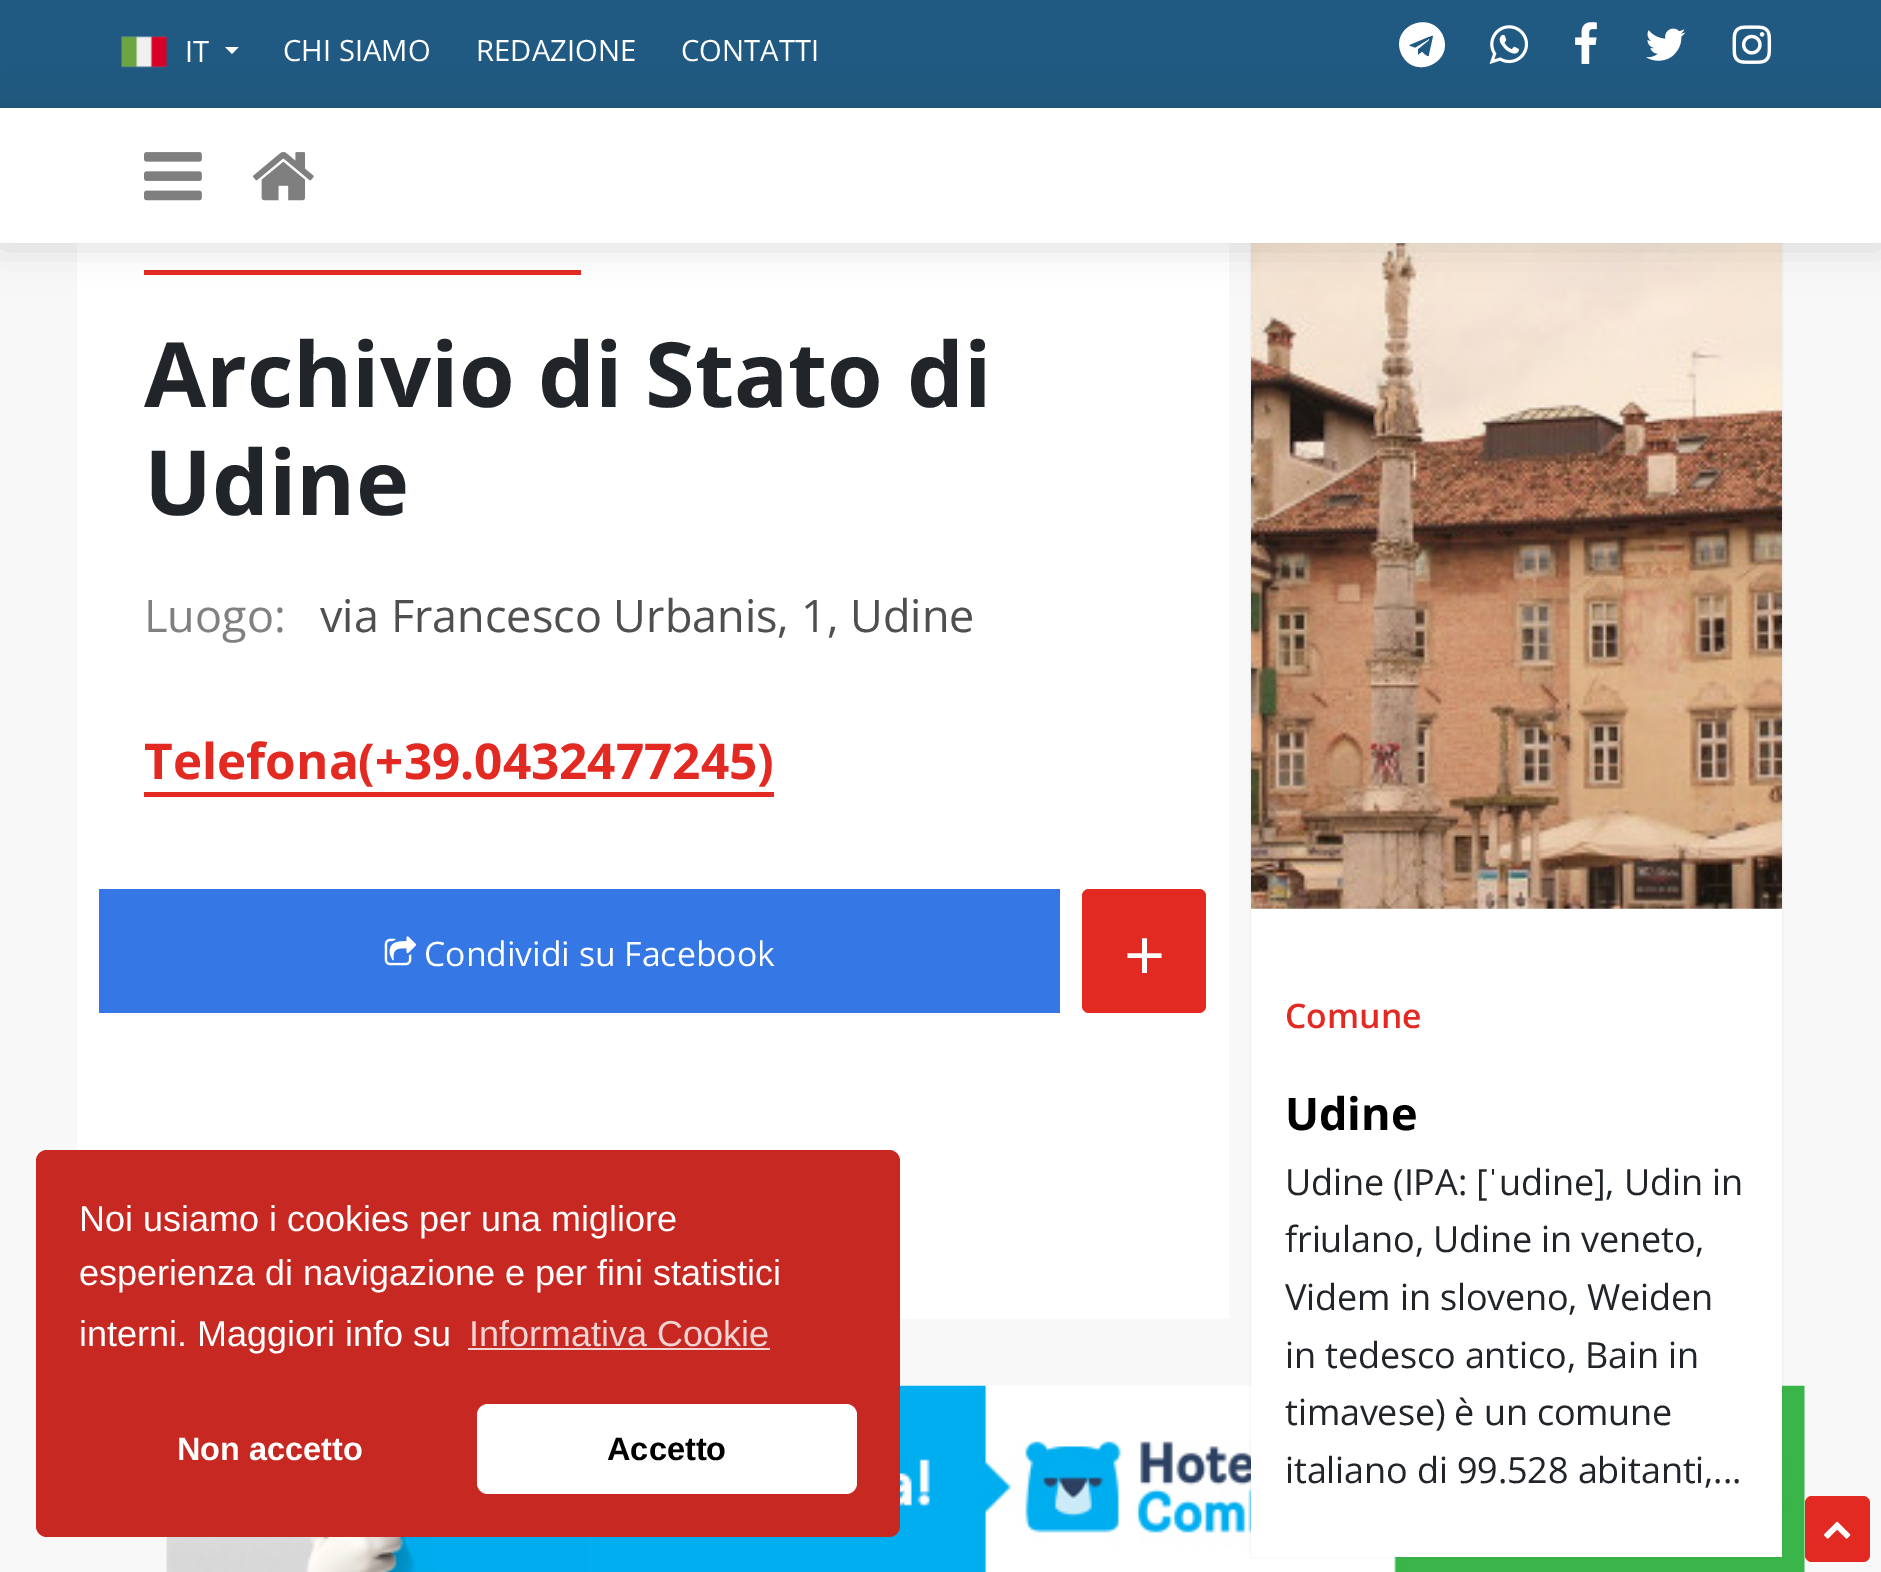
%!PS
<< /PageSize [1881 1572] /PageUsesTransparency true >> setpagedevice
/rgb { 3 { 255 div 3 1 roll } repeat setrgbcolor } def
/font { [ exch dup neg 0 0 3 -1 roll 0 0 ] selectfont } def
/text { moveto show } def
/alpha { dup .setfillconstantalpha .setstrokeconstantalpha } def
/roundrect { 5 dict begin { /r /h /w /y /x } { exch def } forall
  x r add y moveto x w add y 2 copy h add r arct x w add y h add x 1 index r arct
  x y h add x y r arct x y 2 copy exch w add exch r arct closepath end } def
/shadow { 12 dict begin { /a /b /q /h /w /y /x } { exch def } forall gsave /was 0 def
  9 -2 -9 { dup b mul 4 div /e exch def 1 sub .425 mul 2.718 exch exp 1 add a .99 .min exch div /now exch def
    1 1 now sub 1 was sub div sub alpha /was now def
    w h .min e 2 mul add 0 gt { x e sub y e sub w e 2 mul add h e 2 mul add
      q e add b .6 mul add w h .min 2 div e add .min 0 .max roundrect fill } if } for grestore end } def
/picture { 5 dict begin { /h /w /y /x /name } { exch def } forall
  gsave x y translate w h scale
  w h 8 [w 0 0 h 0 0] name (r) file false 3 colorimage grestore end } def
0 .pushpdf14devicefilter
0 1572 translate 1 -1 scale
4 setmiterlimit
248 248 249 rgb
0 0 1881 1572 rectfill
(img_09.rgb) 166 1385 1639 187 picture
24 24 24 rgb
1251 70 531 1487 0 1 0.1 shadow
32 89 129 rgb
0 0 1881 108 rectfill
255 255 255 rgb
77 243 1152 1076 rectfill
226 42 34 rgb
144 270 437 5 rectfill
255 255 255 rgb
1251 908 531 649 rectfill
(img_10.rgb) 1251 243 531 666 picture
0 0 0 rgb
0 113 1881 135 0 19 0.14 shadow
(img_01.rgb) 121 36 46 32 picture
255 255 255 rgb
225 47 moveto 13.5 0 rlineto -6.5 7 rlineto closepath fill
1429 55 moveto 4 -18 rlineto 1 -3 -4 0 -5 0 rcurveto -19 8 rlineto -1 1 5 2 6 3 rcurveto 13 -8 rlineto 0 -1 1 -1 1 0 rcurveto -11 9 rlineto 0 6 rlineto 4 -3 rlineto 1 1 7 7 7 3 rcurveto closepath 1443 36 moveto 11 27 -30 45 -42 17 rcurveto -11 -27 30 -44 42 -17 rcurveto closepath fill
(img_02.rgb) 1489 25 40 39 picture
(img_03.rgb) 1575 22 22 42 picture
(img_04.rgb) 1646 28 40 33 picture
(img_05.rgb) 1732 25 40 39 picture
0 108 1881 135 rectfill
(img_06.rgb) 144 152 58 49 picture
(img_07.rgb) 253 152 61 49 picture
226 42 34 rgb
144 792 630 5 rectfill
53 120 229 rgb
99 889 961 124 rectfill
(img_08.rgb) 384 936 33 30 picture
226 42 34 rgb
1082 889 124 124 7 roundrect fill
1805 1496 65 66 7 roundrect fill
(img_11.rgb) 1824 1521 27 18 picture
199 40 33 rgb
36 1150 864 387 11 roundrect fill
244 212 211 rgb
468 1348 302 2 rectfill
255 255 255 rgb
477 1404 380 90 11 roundrect fill
/OpenSans-Regular 29.25 font
(IT) 185 62 text
(CHI SIAMO) 283 61 text
(REDAZIONE) 476 61 text
(CONTATTI) 681 61 text
/OpenSans-Bold 90 font
33 37 41 rgb
(Archivio di Stato di) 144 407 text
(Udine) 144 515 text
/OpenSans-Regular 45 font
128 128 128 rgb
(Luogo:) 144 632 text
79 79 79 rgb
(via Francesco Urbanis, 1, Udine) 320 632 text
/OpenSans-Bold 49.5 font
226 42 34 rgb
(Telefona\(+39.0432477245\)) 144 779 text
/OpenSans-Regular 33.75 font
255 255 255 rgb
(Condividi su Facebook) 424 966 text
/OpenSans-Regular 72 font
(+) 1124 981 text
/OpenSans-SemiBold 33.75 font
226 42 34 rgb
(Comune) 1285 1028 text
/OpenSans-Bold 45 font
0 0 0 rgb
(Udine) 1285 1130 text
/OpenSans-Regular 36 font
33 37 41 rgb
1285 1195 moveto -0.15 0 (Udine \(IPA: [) ashow
/LiberationSans-Regular 36 font
1487 1195 moveto -0.15 0 (ˈ) ashow
/OpenSans-Regular 36 font
1499 1195 moveto -0.15 0 (udine], Udin in) ashow
1285 1252 moveto -0.15 0 (friulano, Udine in veneto,) ashow
1285 1310 moveto -0.15 0 (Videm in sloveno, Weiden) ashow
1285 1368 moveto -0.15 0 (in tedesco antico, Bain in) ashow
1285 1425 moveto -0.15 0 (timavese\) è un comune) ashow
1285 1483 moveto -0.15 0 (italiano di 99.528 abitanti,...) ashow
/LiberationSans-Regular 36 font
255 255 255 rgb
(Noi usiamo i cookies per una migliore) 79 1231 text
(esperienza di navigazione e per fini statistici) 79 1285 text
(interni. Maggiori info su) 79 1346 text
244 212 211 rgb
(Informativa Cookie) 469 1346 text
/LiberationSans-Bold 32.5 font
255 255 255 rgb
(Non accetto) 177 1460 text
0 0 0 rgb
(Accetto) 607 1460 text
.poppdf14devicefilter showpage
